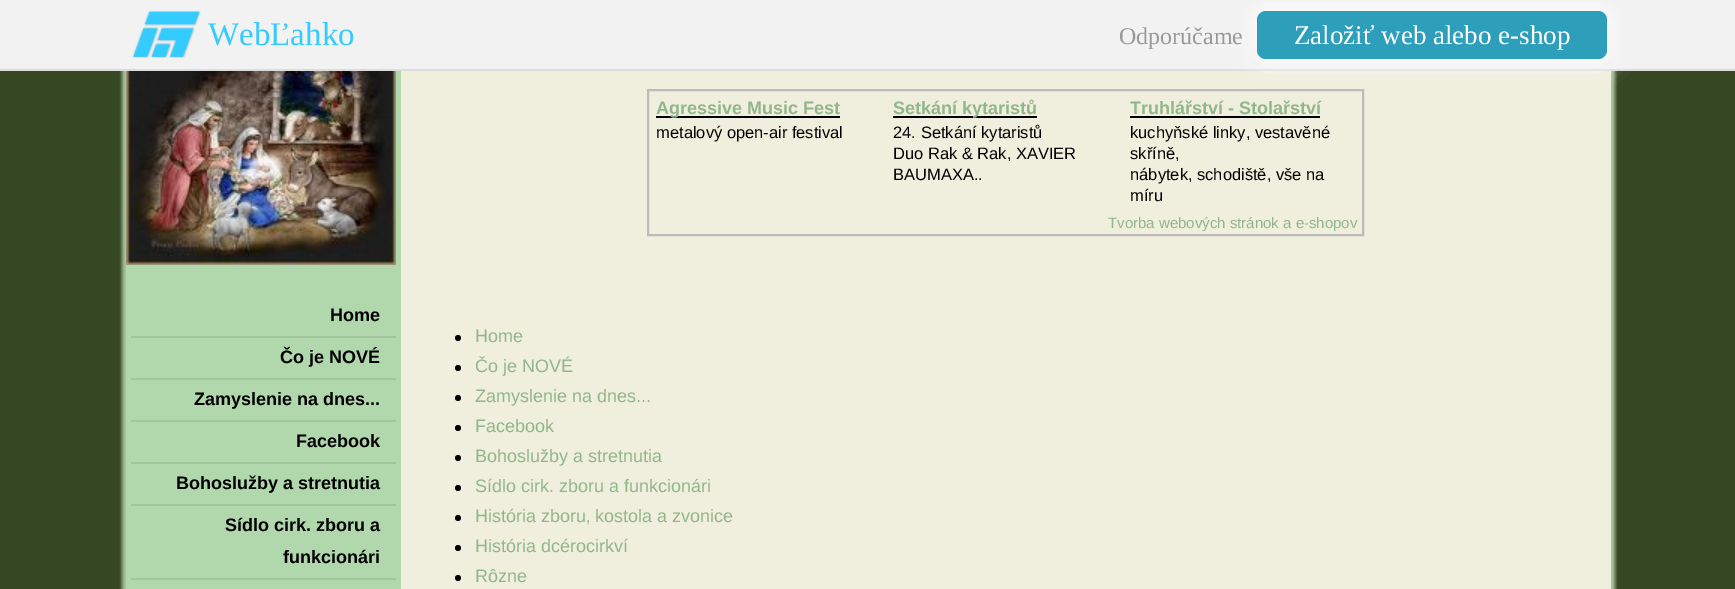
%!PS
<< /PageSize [1735 589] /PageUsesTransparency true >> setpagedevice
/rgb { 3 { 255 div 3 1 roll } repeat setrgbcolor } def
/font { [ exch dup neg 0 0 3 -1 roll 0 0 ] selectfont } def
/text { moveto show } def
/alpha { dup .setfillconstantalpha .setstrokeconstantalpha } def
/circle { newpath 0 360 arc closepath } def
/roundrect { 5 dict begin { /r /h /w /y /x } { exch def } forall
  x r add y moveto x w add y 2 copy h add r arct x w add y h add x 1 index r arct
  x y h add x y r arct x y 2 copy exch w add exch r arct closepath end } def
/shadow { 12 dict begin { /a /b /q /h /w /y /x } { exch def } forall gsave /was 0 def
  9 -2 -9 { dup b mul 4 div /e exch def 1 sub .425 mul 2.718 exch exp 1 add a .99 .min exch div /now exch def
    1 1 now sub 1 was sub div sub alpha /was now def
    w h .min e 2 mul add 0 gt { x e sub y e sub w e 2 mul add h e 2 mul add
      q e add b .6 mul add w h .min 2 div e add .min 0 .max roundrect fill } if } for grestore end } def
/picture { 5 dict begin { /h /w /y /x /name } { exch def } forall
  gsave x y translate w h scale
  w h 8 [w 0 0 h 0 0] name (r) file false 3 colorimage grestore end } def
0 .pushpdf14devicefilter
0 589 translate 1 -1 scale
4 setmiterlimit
54 71 35 rgb
0 0 1735 589 rectfill
242 242 242 rgb
0 0 1735 69 rectfill
221 221 221 rgb
0 69 1735 2 rectfill
(img_01.rgb) 132 10 69 48 picture
240 238 220 rgb
401 71 1210 518 rectfill
187 187 187 rgb
2 setlinewidth
648 90 715 145 rectstroke
(img_04.rgb) 1611 71 7 518 picture
255 255 255 rgb
1251 5 362 60 15 12 0.75 shadow
45 159 187 rgb
1257 11 350 48 9 roundrect fill
(img_02.rgb) 119 71 7 518 picture
177 216 173 rgb
126 265 270 324 rectfill
(img_03.rgb) 126 71 270 194 picture
160 199 156 rgb
131 336 265 2 rectfill
131 378 265 2 rectfill
131 420 265 2 rectfill
131 462 265 2 rectfill
131 504 265 2 rectfill
131 578 265 2 rectfill
177 216 173 rgb
396 71 5 518 rectfill
0 0 0 rgb
656 116 184 2 rectfill
893 116 144 2 rectfill
1130 116 190 2 rectfill
458 338 3 circle fill
458 368 3 circle fill
458 398 3 circle fill
458 428 3 circle fill
458 458 3 circle fill
458 488 3 circle fill
458 518 3 circle fill
458 548 3 circle fill
458 578 3 circle fill
/LiberationSerif-Regular 33 font
52 203 255 rgb
(WebĽahko) 208 45 text
/LiberationSerif-Regular 24 font
153 153 153 rgb
(Odporúčame) 1119 44 text
/LiberationSerif-Regular 27 font
255 255 255 rgb
(Založiť web alebo e-shop) 1294 44 text
/LiberationSans-Bold 18 font
0 0 0 rgb
(Home) 330 321 text
(Čo je NOVÉ) 280 363 text
(Zamyslenie na dnes...) 194 405 text
(Facebook) 296 447 text
(Bohoslužby a stretnutia) 176 489 text
(Sídlo cirk. zboru a) 225 531 text
(funkcionári) 283 563 text
144 182 139 rgb
(Agressive Music Fest) 656 114 text
/LiberationSans-Regular 16.5 font
0 0 0 rgb
(metalový open-air festival) 656 138 text
/LiberationSans-Bold 18 font
144 182 139 rgb
(Setkání kytaristů) 893 114 text
/LiberationSans-Regular 16.5 font
0 0 0 rgb
(24. Setkání kytaristů) 893 138 text
(Duo Rak & Rak, XAVIER) 893 159 text
(BAUMAXA..) 893 180 text
gsave
1130 98 222 24 rectclip
/LiberationSans-Bold 18 font
144 182 139 rgb
(Truhlářství - Stolařství) 1130 114 text
grestore
(kuchyňské linky, vestavěné) 1130 138 text
(skříně,) 1130 159 text
(nábytek, schodiště, vše na) 1130 180 text
(míru) 1130 201 text
/LiberationSans-Regular 15 font
144 182 139 rgb
(Tvorba webových stránok a e-shopov) 1108 228 text
/LiberationSans-Regular 18 font
(Home) 475 342 text
(Čo je NOVÉ) 475 372 text
(Zamyslenie na dnes...) 475 402 text
(Facebook) 475 432 text
(Bohoslužby a stretnutia) 475 462 text
(Sídlo cirk. zboru a funkcionári) 475 492 text
(História zboru‚ kostola a zvonice) 475 522 text
(História dcérocirkví) 475 552 text
(Rôzne) 475 582 text
.poppdf14devicefilter showpage
